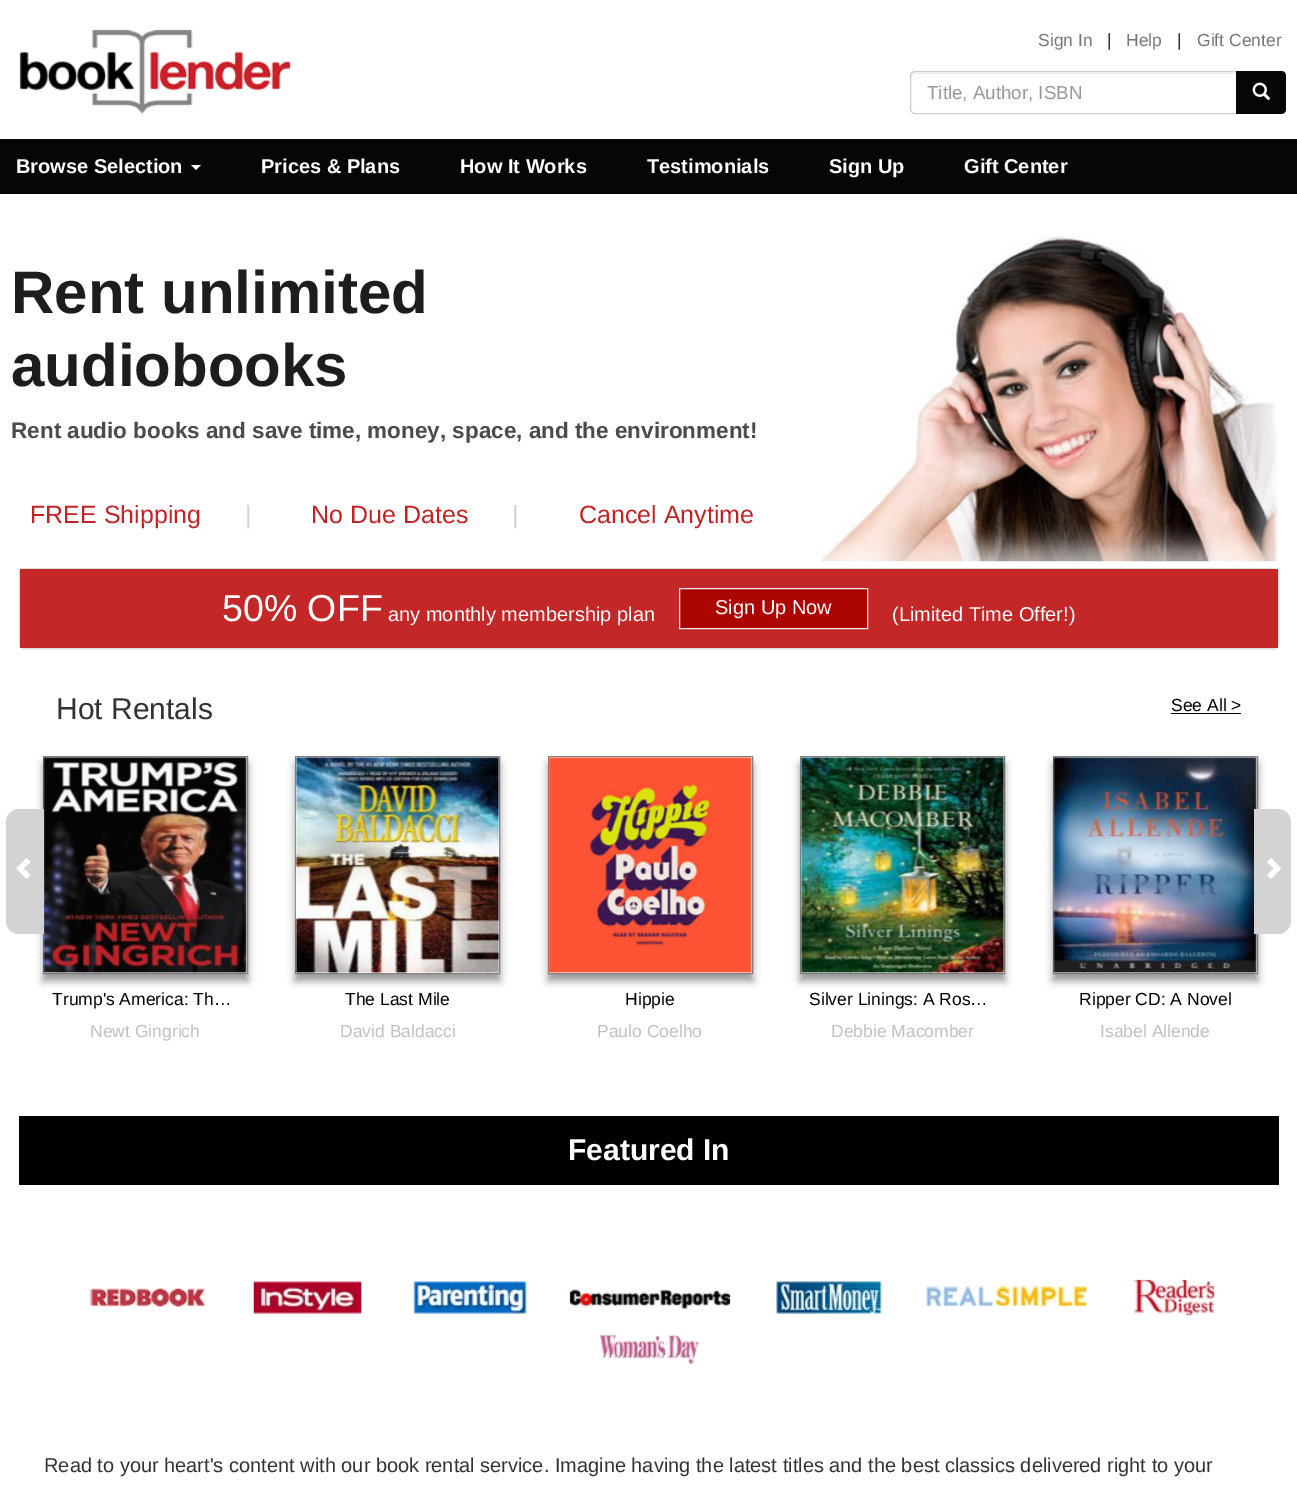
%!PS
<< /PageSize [1297 1495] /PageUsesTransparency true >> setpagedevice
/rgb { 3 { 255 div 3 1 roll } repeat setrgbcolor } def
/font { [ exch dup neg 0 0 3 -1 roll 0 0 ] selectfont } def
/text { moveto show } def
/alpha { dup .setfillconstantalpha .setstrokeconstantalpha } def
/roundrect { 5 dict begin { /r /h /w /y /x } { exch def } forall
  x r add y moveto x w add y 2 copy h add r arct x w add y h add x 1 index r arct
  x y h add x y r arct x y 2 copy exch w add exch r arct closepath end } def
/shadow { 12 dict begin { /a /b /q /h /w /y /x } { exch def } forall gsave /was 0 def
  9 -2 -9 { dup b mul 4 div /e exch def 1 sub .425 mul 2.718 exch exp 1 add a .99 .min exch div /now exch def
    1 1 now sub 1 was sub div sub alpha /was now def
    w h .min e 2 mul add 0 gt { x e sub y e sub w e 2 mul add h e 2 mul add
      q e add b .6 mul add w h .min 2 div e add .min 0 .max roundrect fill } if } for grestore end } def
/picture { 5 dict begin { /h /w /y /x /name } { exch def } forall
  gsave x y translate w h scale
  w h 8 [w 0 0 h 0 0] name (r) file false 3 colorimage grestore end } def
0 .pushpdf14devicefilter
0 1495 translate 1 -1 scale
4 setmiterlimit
255 255 255 rgb
0 0 1297 1495 rectfill
(img_01.rgb) 19 29 272 85 picture
236 236 236 rgb
915 74 moveto 321 0 rlineto 0 -1 rlineto -321 0 rlineto -2 0 -4 2 -4 4 rcurveto 0 1 rlineto 0 -3 2 -4 4 -4 rcurveto closepath fill
204 204 204 rgb
915 71.5 moveto 322.5 0 rlineto 0 42 rlineto -322.5 0 rlineto -2.5 0 -4.5 -2 -4.5 -4.5 rcurveto 0 -33 rlineto 0 -2.5 2 -4.5 4.5 -4.5 rcurveto closepath stroke
6 6 6 rgb
1236 71 moveto 45 0 rlineto 3 0 5 2 5 5 rcurveto 0 33 rlineto 0 3 -2 5 -5 5 rcurveto -45 0 rlineto closepath fill
(img_02.rgb) 1252 82 19 19 picture
0 139 1297 55 rectfill
255 255 255 rgb
191 165 moveto 10 0 rlineto -5 5 rlineto closepath fill
(img_03.rgb) 820 233 459 329 picture
0 0 0 rgb
19 569 1260 81 5 0.5 0.05 shadow
221 221 221 rgb
19.5 568.5 1259 80 4.5 roundrect stroke
195 39 39 rgb
20 569 1258 79 rectfill
171 6 1 rgb
679.5 588.5 moveto 188 0 rlineto 0 40 rlineto -188 0 rlineto closepath gsave fill grestore
238 238 238 rgb
stroke
0 0 0 rgb
1171 713 70 1 rectfill
119 119 119 rgb
43 764 205 217 0 4 0.75 shadow
128 128 128 rgb
43.5 756.5 204 217 rectstroke
(img_04.rgb) 43 757 204 217 picture
211 211 211 rgb
19 809 moveto 25 0 rlineto 0 125 rlineto -25 0 rlineto -7 0 -13 -6 -13 -13 rcurveto 0 -99 rlineto 0 -7 6 -13 13 -13 rcurveto closepath fill
255 255 255 rgb
30.5 862 moveto -7 6.5 rlineto 7 6.5 rlineto -4 4 rlineto -10 -10.5 rlineto 10 -10.5 rlineto closepath fill
119 119 119 rgb
1053 764 205 217 0 4 0.75 shadow
128 128 128 rgb
1053.5 756.5 204 217 rectstroke
(img_08.rgb) 1053 757 204 217 picture
211 211 211 rgb
1254 809 moveto 24 0 rlineto 7 0 13 6 13 13 rcurveto 0 99 rlineto 0 7 -6 13 -13 13 rcurveto -24 0 rlineto closepath fill
255 255 255 rgb
1281 868.5 moveto -10 10.5 rlineto -4 -4 rlineto 7 -6.5 rlineto -7 -6.5 rlineto 4 -4 rlineto closepath fill
119 119 119 rgb
295 764 205 217 0 4 0.75 shadow
128 128 128 rgb
295.5 756.5 204 217 rectstroke
(img_05.rgb) 295 757 205 217 picture
119 119 119 rgb
548 764 205 217 0 4 0.75 shadow
128 128 128 rgb
548.5 756.5 204 217 rectstroke
(img_06.rgb) 548 757 204 217 picture
119 119 119 rgb
800 764 205 217 0 4 0.75 shadow
128 128 128 rgb
800.5 756.5 204 217 rectstroke
(img_07.rgb) 800 757 205 217 picture
0 0 0 rgb
19 1116 1260 69 rectfill
(img_09.rgb) 89 1288 117 19 picture
(img_10.rgb) 253 1281 109 33 picture
(img_11.rgb) 413 1281 114 33 picture
(img_12.rgb) 569 1288 162 21 picture
(img_13.rgb) 776 1281 106 33 picture
(img_14.rgb) 926 1286 161 21 picture
(img_15.rgb) 1132 1279 84 37 picture
(img_16.rgb) 598 1333 102 32 picture
/LiberationSans-Regular 17.5 font
118 118 118 rgb
(Sign In) 1038 46 text
51 51 51 rgb
(|) 1107 46 text
118 118 118 rgb
(Help) 1126 46 text
51 51 51 rgb
(|) 1177 46 text
118 118 118 rgb
(Gift Center) 1197 46 text
/LiberationSans-Regular 18.75 font
153 153 153 rgb
(Title, Author, ISBN) 927 99 text
/LiberationSans-Bold 20 font
255 255 255 rgb
(Browse Selection) 16 173 text
(Prices & Plans) 261 173 text
(How It Works) 460 173 text
(Testimonials) 647 173 text
(Sign Up) 829 173 text
(Gift Center) 964 173 text
/LiberationSans-Bold 60 font
29 29 29 rgb
(Rent unlimited) 11 313 text
(audiobooks) 11 386 text
/LiberationSans-Bold 22.5 font
75 75 75 rgb
(Rent audio books and save time, money, space, and the environment!) 11 438 text
/LiberationSans-Regular 25 font
194 34 36 rgb
(FREE Shipping) 30 523 text
209 209 209 rgb
(|) 245 523 text
194 34 36 rgb
(No Due Dates) 311 523 text
209 209 209 rgb
(|) 512 523 text
194 34 36 rgb
(Cancel Anytime) 579 523 text
/LiberationSans-Regular 37.5 font
255 255 255 rgb
(50% OFF) 222 621 text
/LiberationSans-Regular 20 font
(any monthly membership plan) 388 621 text
(Sign Up Now) 715 614 text
(\(Limited Time Offer!\)) 892 621 text
/LiberationSans-Regular 30 font
51 51 51 rgb
(Hot Rentals) 56 719 text
/LiberationSans-Regular 17.5 font
0 0 0 rgb
(See All >) 1171 711 text
(Trump's America: Th…) 52 1005 text
192 192 192 rgb
(Newt Gingrich) 90 1037 text
0 0 0 rgb
(The Last Mile) 345 1005 text
192 192 192 rgb
(David Baldacci) 340 1037 text
0 0 0 rgb
(Hippie) 625 1005 text
192 192 192 rgb
(Paulo Coelho) 597 1037 text
0 0 0 rgb
(Silver Linings: A Ros…) 809 1005 text
192 192 192 rgb
(Debbie Macomber) 831 1037 text
0 0 0 rgb
(Ripper CD: A Novel) 1079 1005 text
192 192 192 rgb
(Isabel Allende) 1100 1037 text
/LiberationSans-Bold 30 font
255 255 255 rgb
(Featured In) 568 1160 text
/LiberationSans-Regular 20 font
51 51 51 rgb
(Read to your heart's content with our book rental service. Imagine having the latest titles and the best classics delivered right to your) 44 1472 text
.poppdf14devicefilter showpage
